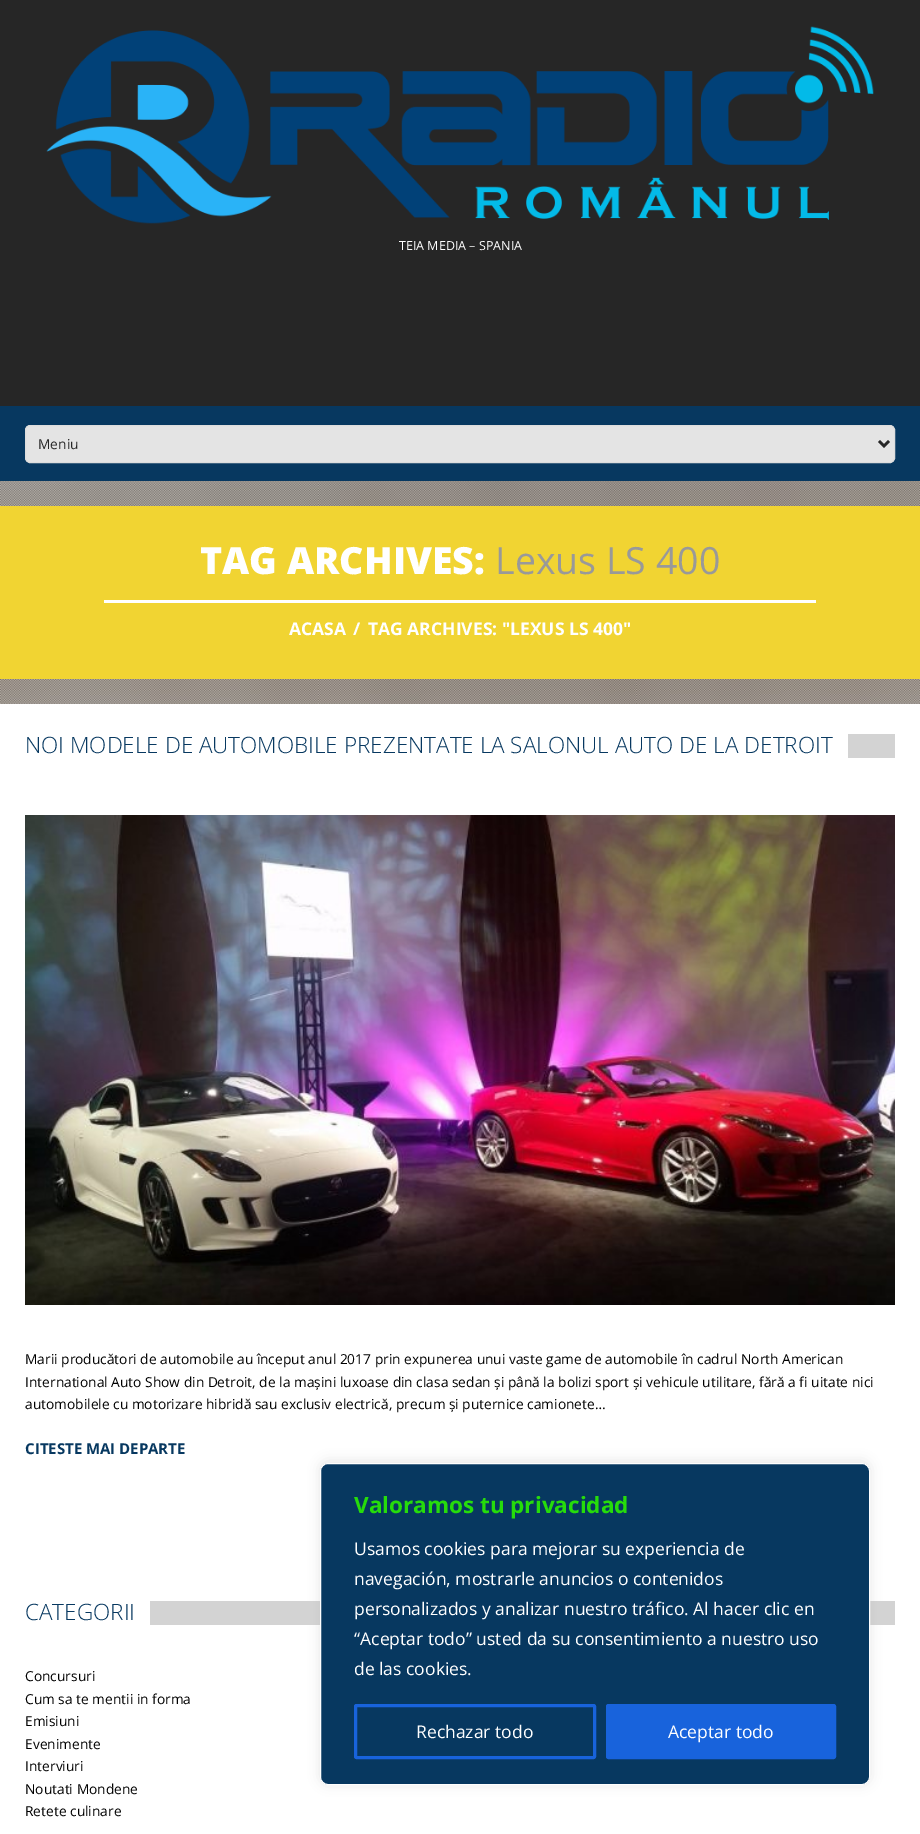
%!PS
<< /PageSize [920 1834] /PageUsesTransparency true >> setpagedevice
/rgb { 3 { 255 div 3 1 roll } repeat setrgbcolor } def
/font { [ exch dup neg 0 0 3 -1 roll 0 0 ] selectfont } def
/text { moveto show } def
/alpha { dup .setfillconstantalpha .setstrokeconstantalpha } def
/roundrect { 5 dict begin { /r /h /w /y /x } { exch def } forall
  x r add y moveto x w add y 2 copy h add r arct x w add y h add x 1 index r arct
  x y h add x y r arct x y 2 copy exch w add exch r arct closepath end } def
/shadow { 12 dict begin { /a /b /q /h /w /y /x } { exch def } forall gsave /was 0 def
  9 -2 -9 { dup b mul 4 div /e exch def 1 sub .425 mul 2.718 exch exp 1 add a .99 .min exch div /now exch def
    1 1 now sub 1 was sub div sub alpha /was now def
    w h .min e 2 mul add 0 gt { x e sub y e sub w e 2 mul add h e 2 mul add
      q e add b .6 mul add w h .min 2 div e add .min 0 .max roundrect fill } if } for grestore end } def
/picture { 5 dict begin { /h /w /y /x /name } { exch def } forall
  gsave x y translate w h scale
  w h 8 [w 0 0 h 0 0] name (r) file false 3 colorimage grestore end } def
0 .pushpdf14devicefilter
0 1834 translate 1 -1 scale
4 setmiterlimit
255 255 255 rgb
0 0 920 1834 rectfill
(img_01.rgb) 0 481 920 223 picture
38 38 38 rgb
0 0 920 406 rectfill
(img_02.rgb) 46 26 828 198 picture
7 56 96 rgb
0 406 920 75 rectfill
228 228 228 rgb
25.5 425.5 869 37 4.5 roundrect gsave fill grestore
221 221 221 rgb
stroke
38 38 38 rgb
2.5 setlinewidth
879 441 moveto 5 5 rlineto 5 -5 rlineto stroke
241 212 50 rgb
0 506 920 173 rectfill
255 255 255 rgb
104 600 712 3 rectfill
211 211 211 rgb
848 734 47 24 rectfill
(img_03.rgb) 25 815 870 490 picture
150 1601 745 24 rectfill
172 171 171 rgb
320 1461 550 323 8 6 0.3 shadow
7 56 96 rgb
320.5 1463.5 549 321 7.5 roundrect gsave fill grestore
255 255 255 rgb
1 setlinewidth
stroke
24 99 220 rgb
3 setlinewidth
355.5 1705.5 239 52 1 roundrect stroke
607.5 1705.5 227 52 1 roundrect gsave fill grestore
stroke
/OpenSans-Regular 12.5 font
255 255 255 rgb
(TEIA MEDIA – SPANIA) 399 250 text
/OpenSans-Regular 13.75 font
38 38 38 rgb
(Meniu) 38 449 text
/OpenSans-ExtraBold 37.5 font
255 255 255 rgb
(TAG ARCHIVES:) 200 574 text
/OpenSans-Regular 37.5 font
153 153 153 rgb
(Lexus LS 400) 495 574 text
/OpenSans-Bold 17.5 font
255 255 255 rgb
(ACASA) 289 635 text
(/) 353 635 text
(TAG ARCHIVES: "LEXUS LS 400") 368 635 text
/OpenSans-Light 22.5 font
7 56 96 rgb
(NOI MODELE DE AUTOMOBILE PREZENTATE LA SALONUL AUTO DE LA DETROIT) 25 753 text
/OpenSans-Regular 13.75 font
0 0 0 rgb
(Marii producători de automobile au început anul 2017 prin expunerea unui vaste game de automobile în cadrul North American) 25 1364 text
(International Auto Show din Detroit, de la mașini luxoase din clasa sedan și până la bolizi sport și vehicule utilitare, fără a fi uitate nici) 25 1387 text
(automobilele cu motorizare hibridă sau exclusiv electrică, precum și puternice camionete…) 25 1409 text
/OpenSans-Bold 15 font
7 56 96 rgb
(CITESTE MAI DEPARTE) 25 1454 text
/OpenSans-Light 22.5 font
(CATEGORII) 25 1620 text
/OpenSans-Regular 13.75 font
0 0 0 rgb
(Concursuri) 25 1681 text
(Cum sa te mentii in forma) 25 1704 text
(Emisiuni) 25 1726 text
(Evenimente) 25 1749 text
(Interviuri) 25 1771 text
(Noutati Mondene) 25 1794 text
(Retete culinare) 25 1816 text
/OpenSans-Bold 22.5 font
38 220 11 rgb
(Valoramos tu privacidad) 354 1513 text
/OpenSans-Regular 17.5 font
255 255 255 rgb
(Usamos cookies para mejorar su experiencia de) 354 1555 text
(navegación, mostrarle anuncios o contenidos) 354 1585 text
(personalizados y analizar nuestro tráfico. Al hacer clic en) 354 1615 text
(“Aceptar todo” usted da su consentimiento a nuestro uso) 354 1645 text
(de las cookies.) 354 1675 text
(Rechazar todo) 416 1738 text
(Aceptar todo) 668 1738 text
.poppdf14devicefilter showpage
